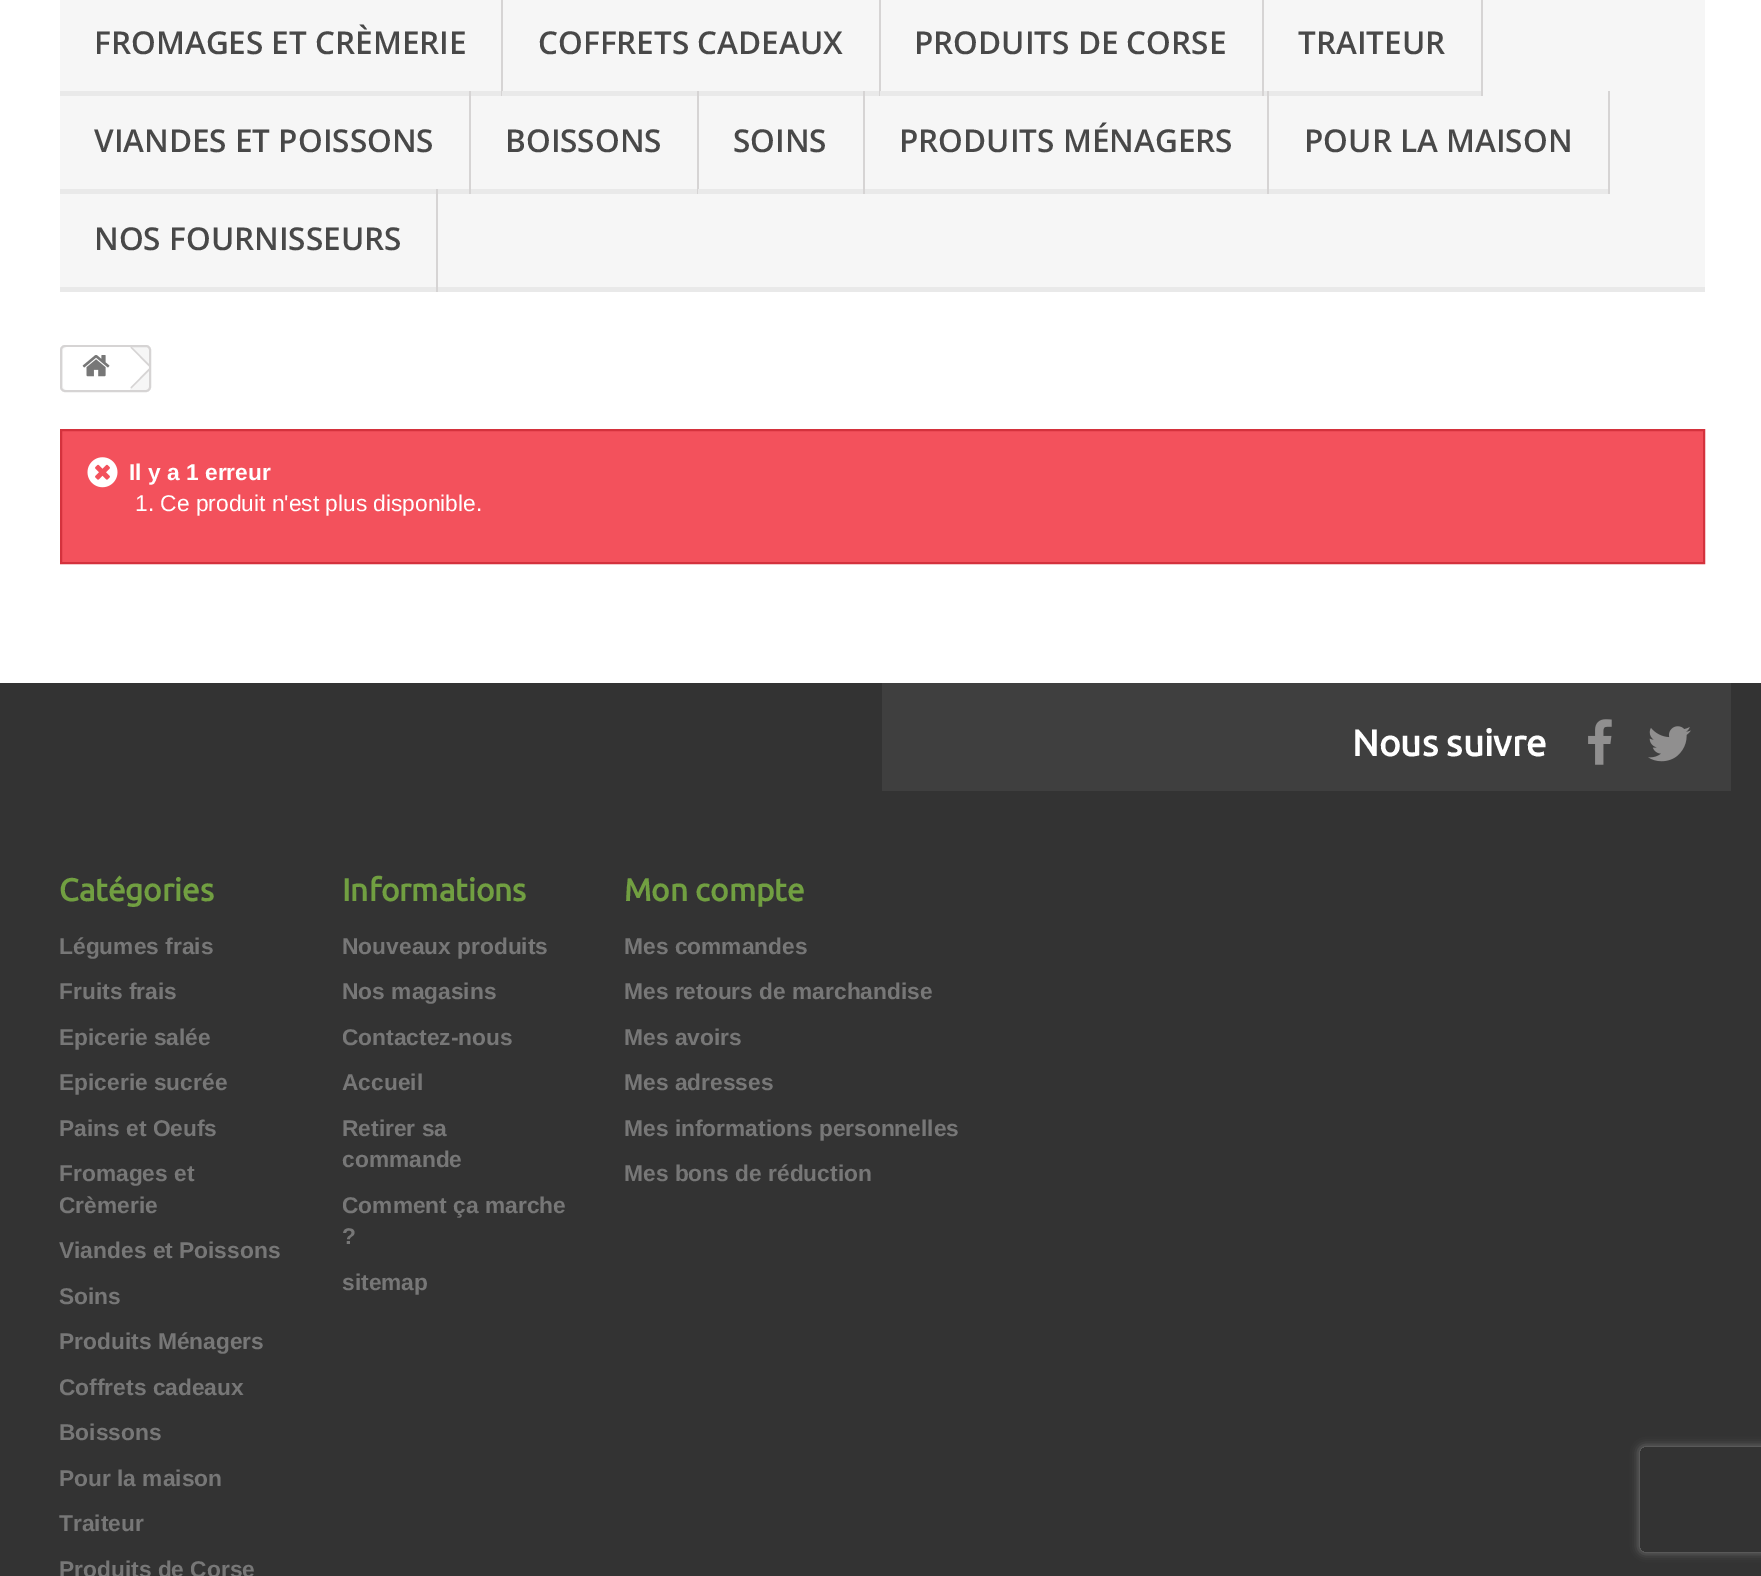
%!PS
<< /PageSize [1761 1576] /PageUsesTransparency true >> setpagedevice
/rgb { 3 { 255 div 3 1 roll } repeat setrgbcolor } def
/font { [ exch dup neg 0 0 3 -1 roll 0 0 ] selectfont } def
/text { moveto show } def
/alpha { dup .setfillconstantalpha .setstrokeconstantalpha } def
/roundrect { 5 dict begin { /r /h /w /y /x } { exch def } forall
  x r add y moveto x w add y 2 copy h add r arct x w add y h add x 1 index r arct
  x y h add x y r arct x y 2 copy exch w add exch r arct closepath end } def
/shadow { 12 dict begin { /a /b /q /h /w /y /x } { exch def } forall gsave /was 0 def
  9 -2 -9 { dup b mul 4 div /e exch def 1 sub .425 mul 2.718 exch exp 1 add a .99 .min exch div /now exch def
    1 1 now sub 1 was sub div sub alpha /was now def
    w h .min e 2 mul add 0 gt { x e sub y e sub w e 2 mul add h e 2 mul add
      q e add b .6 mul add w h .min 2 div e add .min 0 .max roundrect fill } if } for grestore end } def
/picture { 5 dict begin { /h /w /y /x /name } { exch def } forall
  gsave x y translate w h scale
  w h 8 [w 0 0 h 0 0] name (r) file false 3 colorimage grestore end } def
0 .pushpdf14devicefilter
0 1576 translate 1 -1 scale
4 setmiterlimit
51 51 51 rgb
0 0 1761 1576 rectfill
255 255 255 rgb
0 0 1761 683 rectfill
246 246 246 rgb
60 0 1645 287 rectfill
233 233 233 rgb
60 287 1645 5 rectfill
214 212 212 rgb
501 0 2 96 rectfill
233 233 233 rgb
60 91 441 5 rectfill
214 212 212 rgb
879 0 2 96 rectfill
233 233 233 rgb
502 91 377 5 rectfill
214 212 212 rgb
1262 0 2 96 rectfill
233 233 233 rgb
880 91 382 5 rectfill
214 212 212 rgb
1481 0 2 96 rectfill
233 233 233 rgb
1264 91 217 5 rectfill
214 212 212 rgb
469 91 2 103 rectfill
233 233 233 rgb
60 189 409 5 rectfill
214 212 212 rgb
697 91 2 103 rectfill
233 233 233 rgb
471 189 226 5 rectfill
214 212 212 rgb
863 91 2 103 rectfill
233 233 233 rgb
698 189 165 5 rectfill
214 212 212 rgb
1267 91 2 103 rectfill
233 233 233 rgb
865 189 402 5 rectfill
214 212 212 rgb
1608 91 2 103 rectfill
233 233 233 rgb
1269 189 339 5 rectfill
214 212 212 rgb
436 189 2 103 rectfill
246 246 246 rgb
61 346 89 45 4 roundrect gsave fill grestore
214 212 212 rgb
2 setlinewidth
stroke
255 255 255 rgb
68 347 moveto 62 0 rlineto 0 43 rlineto -62 0 rlineto -3 0 -5 -2 -5 -5 rcurveto 0 -33 rlineto 0 -3 2 -5 5 -5 rcurveto closepath fill
133 348 moveto -1 -1 rlineto -3 0 rlineto -15 15 rlineto -3 3 -6 5 -3 8 rcurveto 17 17 rlineto 3 3 5 0 8 -3 rcurveto 13 -13 rlineto 0 -7 rlineto closepath fill
(img_01.rgb) 82 355 28 22 picture
214 212 212 rgb
149 366.5 moveto -18.5 -19 rlineto 0.5 -0.5 rlineto 1 0 rlineto 17 17 rlineto closepath 149 368.5 moveto 0 2.5 rlineto -17.5 17.5 rlineto -1 -1 rlineto closepath fill
243 81 92 rgb
61 430 moveto 1643 0 rlineto 0 133 rlineto -1643 0 rlineto closepath gsave fill grestore
212 50 61 rgb
stroke
(img_02.rgb) 87 457 31 31 picture
63 63 63 rgb
882 683 849 108 rectfill
(img_03.rgb) 1588 719 24 46 picture
(img_04.rgb) 1648 726 43 36 picture
gsave
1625 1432 moveto 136 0 rlineto 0 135 rlineto -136 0 rlineto closepath 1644 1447 moveto 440 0 rlineto 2 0 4 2 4 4 rcurveto 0 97 rlineto 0 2 -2 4 -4 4 rcurveto -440 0 rlineto -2 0 -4 -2 -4 -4 rcurveto 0 -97 rlineto 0 -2 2 -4 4 -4 rcurveto closepath eoclip newpath
128 128 128 rgb
1640 1447 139 105 4 4.5 1 shadow
grestore
/OpenSans-SemiBold 31.5 font
72 72 72 rgb
(FROMAGES ET CRÈMERIE) 94 54 text
(COFFRETS CADEAUX) 538 54 text
(PRODUITS DE CORSE) 914 54 text
(TRAITEUR) 1298 54 text
(VIANDES ET POISSONS) 94 152 text
(BOISSONS) 505 152 text
(SOINS) 733 152 text
(PRODUITS MÉNAGERS) 899 152 text
(POUR LA MAISON) 1304 152 text
(NOS FOURNISSEURS) 94 250 text
/LiberationSans-Bold 22.75 font
255 255 255 rgb
(Il y a 1 erreur) 129 480 text
/LiberationSans-Regular 22.75 font
(1. Ce produit n'est plus disponible.) 135 511 text
/Ubuntu-Bold 36.75 font
(Nous suivre) 1352 756 text
/Ubuntu-Bold 31.5 font
113 159 65 rgb
(Catégories) 59 901 text
/LiberationSans-Bold 22.75 font
119 119 119 rgb
(Légumes frais) 59 954 text
(Fruits frais) 59 999 text
(Epicerie salée) 59 1045 text
(Epicerie sucrée) 59 1090 text
(Pains et Oeufs) 59 1136 text
(Fromages et) 59 1181 text
(Crèmerie) 59 1213 text
(Viandes et Poissons) 59 1258 text
(Soins) 59 1304 text
(Produits Ménagers) 59 1349 text
(Coffrets cadeaux) 59 1395 text
(Boissons) 59 1440 text
(Pour la maison) 59 1486 text
(Traiteur) 59 1531 text
(Produits de Corse) 59 1577 text
/Ubuntu-Bold 31.5 font
113 159 65 rgb
(Informations) 342 901 text
/LiberationSans-Bold 22.75 font
119 119 119 rgb
(Nouveaux produits) 342 954 text
(Nos magasins) 342 999 text
(Contactez-nous) 342 1045 text
(Accueil) 342 1090 text
(Retirer sa) 342 1136 text
(commande) 342 1167 text
(Comment ça marche) 342 1213 text
(?) 342 1244 text
(sitemap) 342 1290 text
/Ubuntu-Bold 31.5 font
113 159 65 rgb
(Mon compte) 624 901 text
/LiberationSans-Bold 22.75 font
119 119 119 rgb
(Mes commandes) 624 954 text
(Mes retours de marchandise) 624 999 text
(Mes avoirs) 624 1045 text
(Mes adresses) 624 1090 text
(Mes informations personnelles) 624 1136 text
(Mes bons de réduction) 624 1181 text
.poppdf14devicefilter showpage
